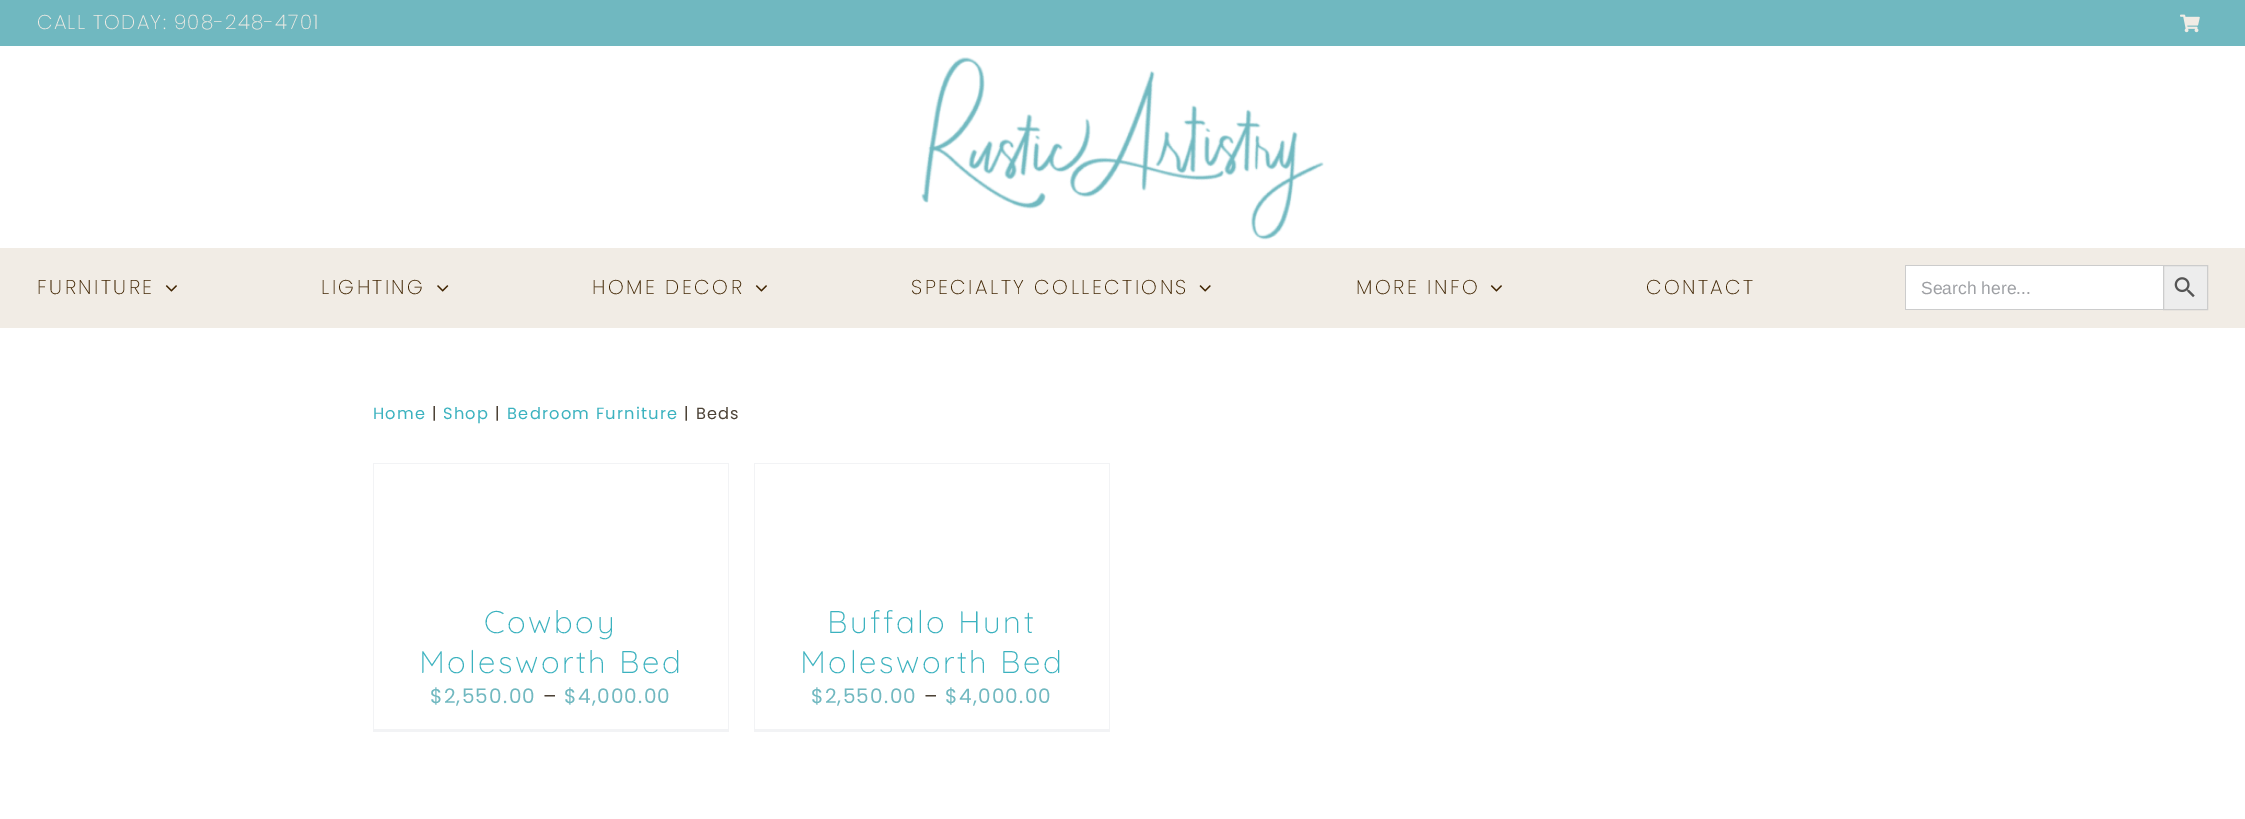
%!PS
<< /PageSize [2245 819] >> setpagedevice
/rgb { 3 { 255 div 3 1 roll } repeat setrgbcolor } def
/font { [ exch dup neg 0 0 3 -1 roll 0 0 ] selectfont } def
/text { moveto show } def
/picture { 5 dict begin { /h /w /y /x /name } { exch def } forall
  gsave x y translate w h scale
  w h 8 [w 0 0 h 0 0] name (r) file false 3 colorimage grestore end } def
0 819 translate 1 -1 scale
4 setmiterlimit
255 255 255 rgb
0 0 2245 819 rectfill
112 184 192 rgb
0 0 2245 46 rectfill
(img_01.rgb) 2180 14 20 19 picture
(img_02.rgb) 921 57 403 183 picture
241 236 229 rgb
0 248 2245 80 rectfill
(img_03.rgb) 165 285 12 7 picture
(img_04.rgb) 437 285 12 7 picture
(img_03.rgb) 755 285 12 7 picture
(img_05.rgb) 1199 285 12 7 picture
(img_03.rgb) 1490 285 12 7 picture
255 255 255 rgb
1906 266 257 43 rectfill
204 204 204 rgb
1905 265 258 1 rectfill
1905 309 258 1 rectfill
1905 265 1 45 rectfill
237 237 237 rgb
2163.5 265.5 moveto 44 0 rlineto 0 44 rlineto -44 0 rlineto closepath gsave fill grestore
204 204 204 rgb
stroke
(img_06.rgb) 2174 277 21 21 picture
242 243 245 rgb
373 463 356 1 rectfill
728 463 1 268 rectfill
373 729 356 3 rectfill
373 463 1 268 rectfill
754 463 356 1 rectfill
1109 463 1 268 rectfill
754 729 356 3 rectfill
754 463 1 268 rectfill
/Poppins-ExtraLight 20 font
241 236 229 rgb
37 29 moveto 1.25 0 (CALL TODAY: 908-248-4701) ashow
63 35 0 rgb
37 294 moveto 2.5 0 (FURNITURE) ashow
321 294 moveto 2.5 0 (LIGHTING) ashow
592 294 moveto 2.5 0 (HOME DECOR) ashow
911 294 moveto 2.5 0 (SPECIALTY COLLECTIONS) ashow
1356 294 moveto 2.5 0 (MORE INFO) ashow
1646 294 moveto 2.5 0 (CONTACT) ashow
/LiberationSans-Regular 17.5 font
158 160 164 rgb
(Search here...) 1921 294 text
/Poppins-Regular 16.25 font
59 178 191 rgb
373 419 moveto 1.25 0 (Home) ashow
76 66 54 rgb
432 419 moveto 1.25 0 (|) ashow
59 178 191 rgb
443 419 moveto 1.25 0 (Shop) ashow
76 66 54 rgb
495 419 moveto 1.25 0 (|) ashow
59 178 191 rgb
507 419 moveto 1.25 0 (Bedroom Furniture) ashow
76 66 54 rgb
684 419 moveto 1.25 0 (| Beds) ashow
/Quicksand-Light 31.25 font
59 178 191 rgb
484 633 moveto 2.5 0 (Cowboy) ashow
419 673 moveto 2.5 0 (Molesworth Bed) ashow
/Poppins-Regular 20 font
112 184 192 rgb
430 703 moveto 1.25 0 ($2,550.00) ashow
76 66 54 rgb
543 703 moveto 1.25 0 (–) ashow
112 184 192 rgb
564 703 moveto 1.25 0 ($4,000.00) ashow
/Quicksand-Light 31.25 font
59 178 191 rgb
827 633 moveto 2.5 0 (Buffalo Hunt) ashow
800 673 moveto 2.5 0 (Molesworth Bed) ashow
/Poppins-Regular 20 font
112 184 192 rgb
811 703 moveto 1.25 0 ($2,550.00) ashow
76 66 54 rgb
924 703 moveto 1.25 0 (–) ashow
112 184 192 rgb
945 703 moveto 1.25 0 ($4,000.00) ashow
showpage
